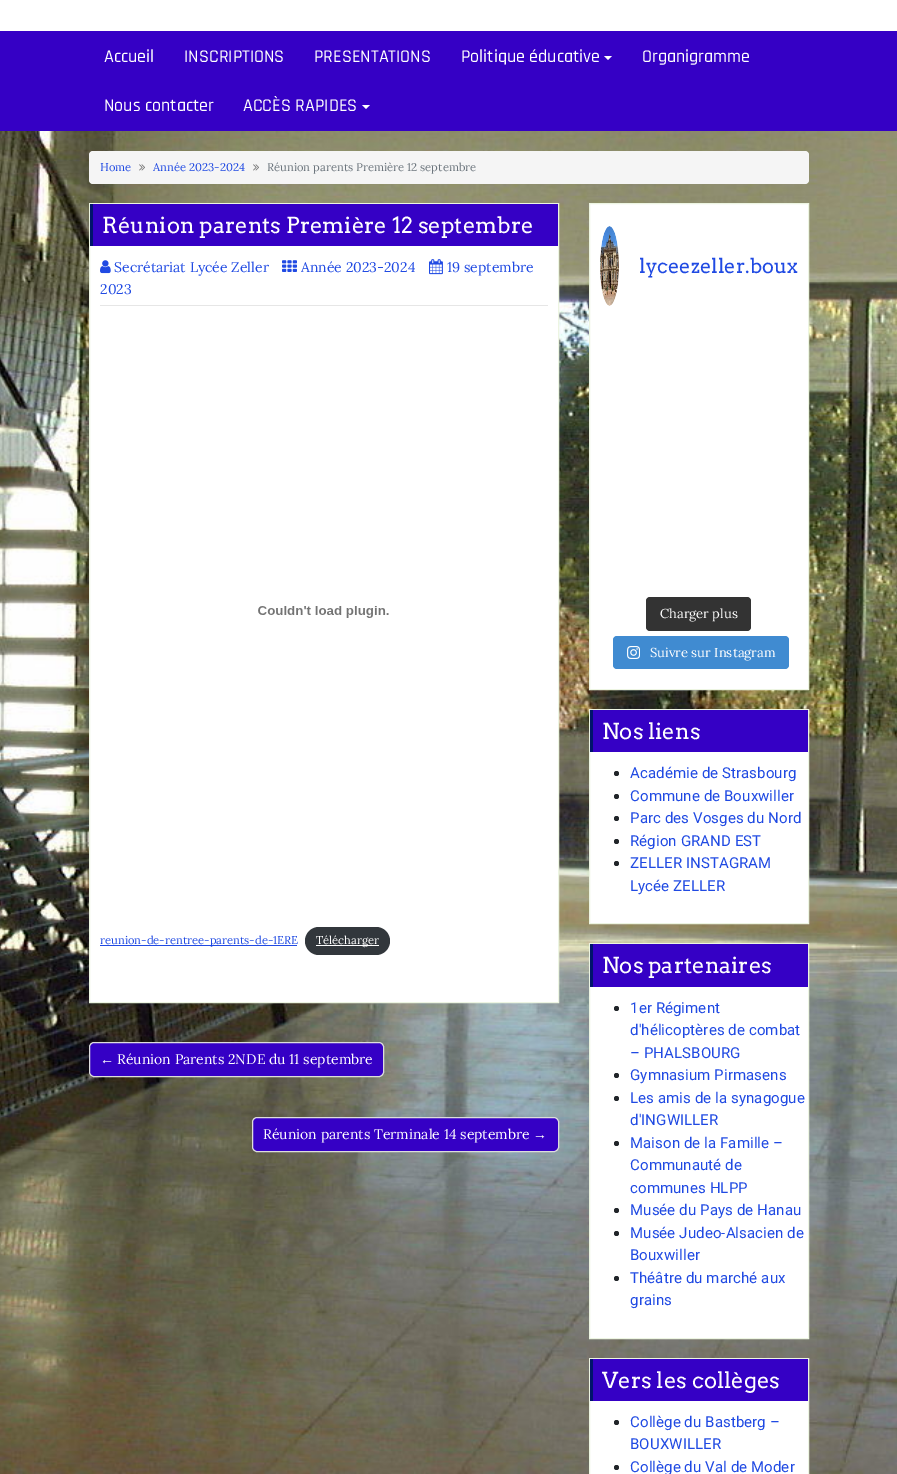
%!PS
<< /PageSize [897 1474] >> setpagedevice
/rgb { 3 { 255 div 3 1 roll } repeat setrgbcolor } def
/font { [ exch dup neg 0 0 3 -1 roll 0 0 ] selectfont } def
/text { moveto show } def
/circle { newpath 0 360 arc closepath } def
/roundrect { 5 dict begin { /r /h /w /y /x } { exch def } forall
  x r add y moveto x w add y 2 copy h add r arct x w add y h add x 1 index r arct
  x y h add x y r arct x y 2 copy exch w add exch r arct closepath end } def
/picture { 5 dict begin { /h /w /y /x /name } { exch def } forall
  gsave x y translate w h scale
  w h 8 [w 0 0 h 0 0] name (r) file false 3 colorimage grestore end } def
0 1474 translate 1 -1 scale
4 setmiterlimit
255 255 255 rgb
0 0 897 1474 rectfill
(img_01.rgb) 0 131 897 1343 picture
53 0 197 rgb
0 31 897 100 rectfill
255 255 255 rgb
604 56 moveto 8 0 rlineto -4 4 rlineto closepath fill
362 105 moveto 8 0 rlineto -4 4 rlineto closepath fill
245 245 245 rgb
89 151 720 33 4 roundrect fill
(img_02.rgb) 139 164 6 7 picture
(img_02.rgb) 253 164 6 7 picture
255 255 255 rgb
90 246 468 756 rectfill
237 245 226 rgb
89.5 203.5 469 799 rectstroke
53 0 197 rgb
93 204 465 42 rectfill
0 20 107 rgb
90 204 3 42 rectfill
(img_03.rgb) 100 260 11 14 picture
(img_04.rgb) 282 260 15 12 picture
(img_05.rgb) 429 259 14 16 picture
230 230 230 rgb
100 305 448 1 rectfill
(img_06.rgb) 258 606 131 12 picture
32 74 227 rgb
100 945 197 1 rectfill
50 55 60 rgb
305 927 85 28 14 roundrect fill
255 255 255 rgb
316 945 63 1 rectfill
53 0 197 rgb
89.5 1042.5 294 34 4.5 roundrect gsave fill grestore
221 221 221 rgb
stroke
53 0 197 rgb
252.5 1117.5 306 34 4.5 roundrect gsave fill grestore
221 221 221 rgb
stroke
255 255 255 rgb
589.5 203.5 moveto 219 0 rlineto 0 486 rlineto -219 0 rlineto closepath gsave fill grestore
237 245 226 rgb
stroke
(img_07.rgb) 600 226 19 80 picture
51 51 51 rgb
646 597 105 34 4 roundrect fill
64 139 209 rgb
613 636 176 33 4 roundrect fill
(img_08.rgb) 627 646 13 13 picture
255 255 255 rgb
590 752 218 171 rectfill
237 245 226 rgb
589.5 709.5 219 214 rectstroke
53 0 197 rgb
593 710 215 42 rectfill
0 20 107 rgb
590 710 3 42 rectfill
33 37 41 rgb
616.5 773.5 2.5 circle fill
616.5 796.5 2.5 circle fill
616.5 818.5 2.5 circle fill
616.5 841.5 2.5 circle fill
616.5 863.5 2.5 circle fill
255 255 255 rgb
590 987 218 351 rectfill
237 245 226 rgb
589.5 943.5 219 395 rectstroke
53 0 197 rgb
593 944 215 43 rectfill
0 20 107 rgb
590 944 3 43 rectfill
33 37 41 rgb
616.5 1008.5 2.5 circle fill
616.5 1075.5 2.5 circle fill
616.5 1098.5 2.5 circle fill
616.5 1143.5 2.5 circle fill
616.5 1210.5 2.5 circle fill
616.5 1233.5 2.5 circle fill
616.5 1278.5 2.5 circle fill
255 255 255 rgb
590 1401 218 73 rectfill
237 245 226 rgb
589.5 1358.5 219 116 rectstroke
53 0 197 rgb
593 1359 215 42 rectfill
0 20 107 rgb
590 1359 3 42 rectfill
33 37 41 rgb
616.5 1422.5 2.5 circle fill
616.5 1467.5 2.5 circle fill
/Rajdhani-Medium 18 font
255 255 255 rgb
(Accueil) 104 62 text
(INSCRIPTIONS) 184 62 text
(PRESENTATIONS) 314 62 text
(Politique éducative) 461 62 text
(Organigramme) 642 62 text
(Nous contacter) 104 111 text
(ACCÈS RAPIDES) 243 111 text
/Lora-Regular 11.25 font
32 74 227 rgb
(Home) 100 171 text
(Année 2023-2024) 153 171 text
108 117 125 rgb
(Réunion parents Première 12 septembre) 267 171 text
/Arvo-Regular 22 font
255 255 255 rgb
(Réunion parents Première 12 septembre) 102 233 text
/Lora-Regular 14 font
32 74 227 rgb
(Secrétariat Lycée Zeller) 114 272 text
(Année 2023-2024) 301 272 text
(19 septembre) 447 272 text
(2023) 100 294 text
/Lora-Regular 11.25 font
(reunion-de-rentree-parents-de-1ERE) 100 944 text
255 255 255 rgb
(Télécharger) 316 944 text
/LiberationSerif-Regular 14 font
(←) 100 1064 text
/Lora-Regular 14 font
(Réunion Parents 2NDE du 11 septembre) 117 1064 text
(Réunion parents Terminale 14 septembre) 263 1139 text
/LiberationSerif-Regular 14 font
(→) 533 1139 text
/Arvo-Regular 20 font
32 74 227 rgb
(lyceezeller.boux) 639 273 text
/Lora-Regular 13 font
255 255 255 rgb
(Charger plus) 660 618 text
(Suivre sur Instagram) 650 657 text
/Arvo-Regular 22 font
(Nos liens) 602 739 text
/Roboto-Regular 15 font
32 74 227 rgb
630 778 moveto 0.1 0 (Académie de Strasbourg) ashow
630 801 moveto 0.1 0 (Commune de Bouxwiller) ashow
630 823 moveto 0.1 0 (Parc des Vosges du Nord) ashow
630 846 moveto 0.1 0 (Région GRAND EST) ashow
630 868 moveto 0.1 0 (ZELLER INSTAGRAM) ashow
630 891 moveto 0.1 0 (Lycée ZELLER) ashow
/Arvo-Regular 22 font
255 255 255 rgb
(Nos partenaires) 602 973 text
/Roboto-Regular 15 font
32 74 227 rgb
630 1013 moveto 0.1 0 (1er Régiment) ashow
630 1035 moveto 0.1 0 (d'hélicoptères de combat) ashow
630 1058 moveto 0.1 0 (– PHALSBOURG) ashow
630 1080 moveto 0.1 0 (Gymnasium Pirmasens) ashow
630 1103 moveto 0.1 0 (Les amis de la synagogue) ashow
630 1125 moveto 0.1 0 (d'INGWILLER) ashow
630 1148 moveto 0.1 0 (Maison de la Famille –) ashow
630 1170 moveto 0.1 0 (Communauté de) ashow
630 1193 moveto 0.1 0 (communes HLPP) ashow
630 1215 moveto 0.1 0 (Musée du Pays de Hanau) ashow
630 1238 moveto 0.1 0 (Musée Judeo-Alsacien de) ashow
630 1260 moveto 0.1 0 (Bouxwiller) ashow
630 1283 moveto 0.1 0 (Théâtre du marché aux) ashow
630 1305 moveto 0.1 0 (grains) ashow
/Arvo-Regular 22 font
255 255 255 rgb
(Vers les collèges) 602 1388 text
/Roboto-Regular 15 font
32 74 227 rgb
630 1427 moveto 0.1 0 (Collège du Bastberg –) ashow
630 1449 moveto 0.1 0 (BOUXWILLER) ashow
630 1472 moveto 0.1 0 (Collège du Val de Moder) ashow
showpage
